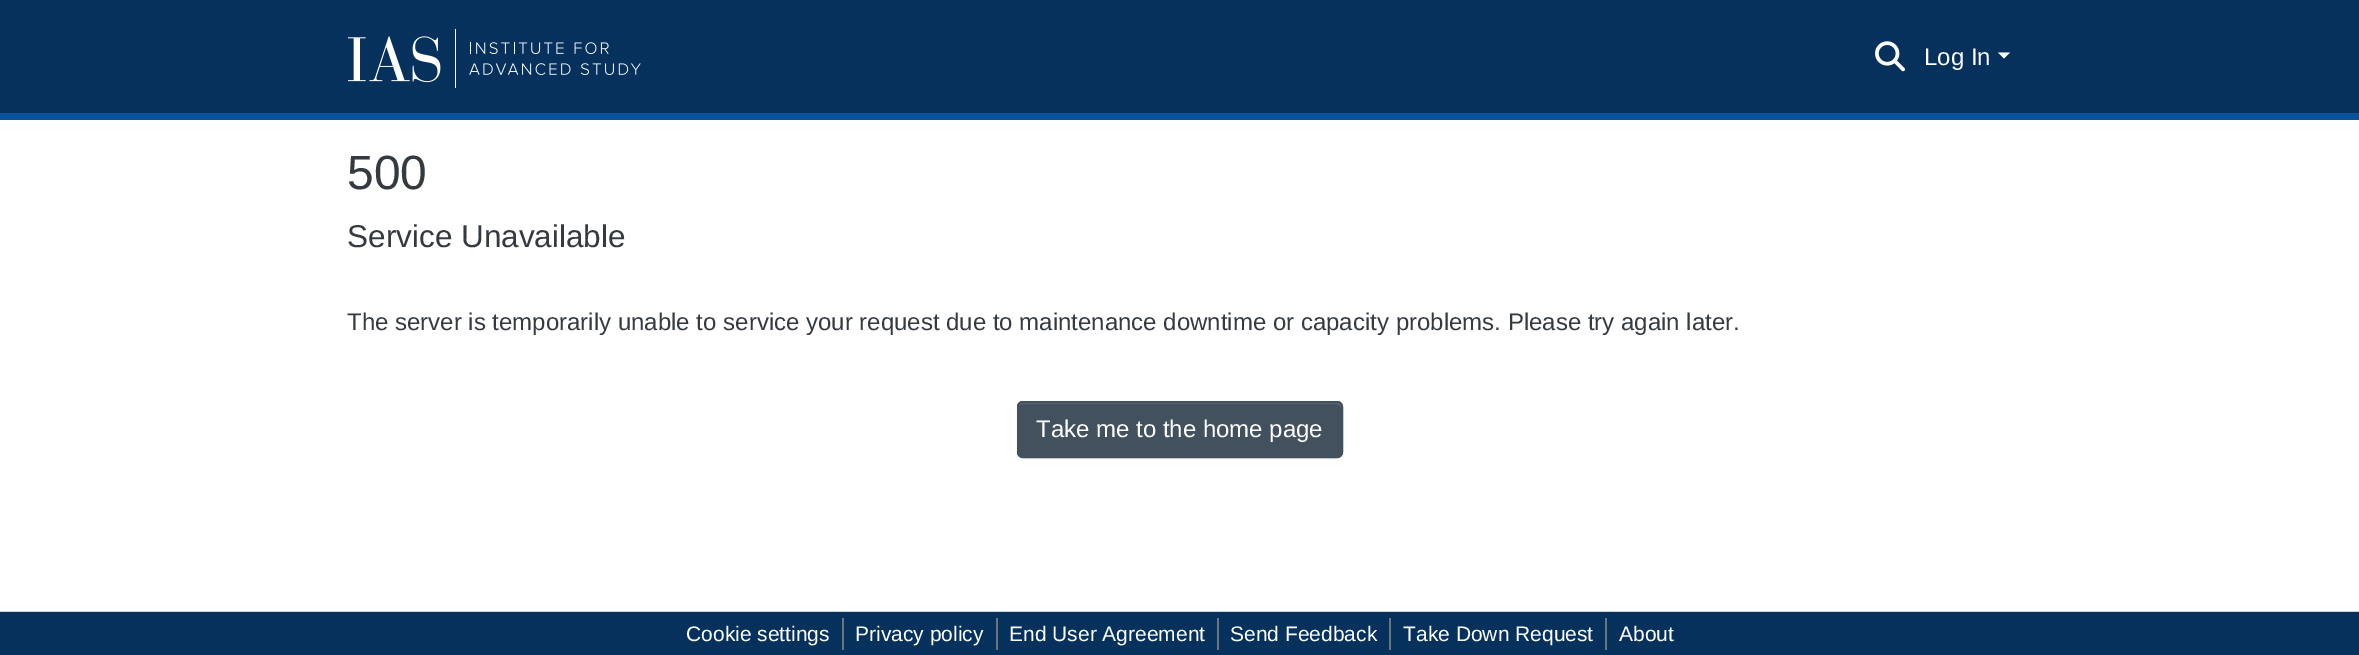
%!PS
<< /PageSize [2359 655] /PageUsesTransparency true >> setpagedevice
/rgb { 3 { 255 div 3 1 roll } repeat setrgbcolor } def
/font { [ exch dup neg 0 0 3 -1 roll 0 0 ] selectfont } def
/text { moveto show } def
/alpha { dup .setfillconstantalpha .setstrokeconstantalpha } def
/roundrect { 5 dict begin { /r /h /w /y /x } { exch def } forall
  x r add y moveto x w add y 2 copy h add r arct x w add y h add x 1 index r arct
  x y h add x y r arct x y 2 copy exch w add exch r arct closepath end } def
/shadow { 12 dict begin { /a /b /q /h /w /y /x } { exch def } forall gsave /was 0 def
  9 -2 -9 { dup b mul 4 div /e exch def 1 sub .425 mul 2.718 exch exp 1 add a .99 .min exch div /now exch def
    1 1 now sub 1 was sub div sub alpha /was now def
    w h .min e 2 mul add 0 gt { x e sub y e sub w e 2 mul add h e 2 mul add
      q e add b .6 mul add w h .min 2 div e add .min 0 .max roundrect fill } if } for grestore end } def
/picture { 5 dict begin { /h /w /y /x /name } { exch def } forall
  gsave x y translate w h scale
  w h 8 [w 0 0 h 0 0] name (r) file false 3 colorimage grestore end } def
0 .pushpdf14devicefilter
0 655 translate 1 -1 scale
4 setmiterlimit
255 255 255 rgb
0 0 2359 655 rectfill
5 49 92 rgb
0 0 2359 113 rectfill
8 82 153 rgb
0 113 2359 7 rectfill
(img_01.rgb) 348 29 293 59 picture
(img_02.rgb) 1875 41 30 31 picture
255 255 255 rgb
1998 52.5 moveto 12 0 rlineto -6 6 rlineto closepath fill
0 0 0 rgb
1017 402 326 57 6 1 0.07 shadow
67 81 95 rgb
1017 401 326 57 6 roundrect fill
95 107 119 rgb
1023 404 moveto 313 0 rlineto 3 0 5 2 5 4 rcurveto 0 -1 rlineto 0 -3 -2 -5 -5 -5 rcurveto -312 0 rlineto -2 0 -4 2 -5 4 rcurveto 1 -1 3 -2 4 -2 rcurveto closepath fill
67 81 95 rgb
2 setlinewidth
1018 402 324 55 5 roundrect stroke
206 212 218 rgb
0 611 2359 1 rectfill
5 49 92 rgb
0 612 2359 43 rectfill
108 117 125 rgb
842 618 2 32 rectfill
996 618 2 32 rectfill
1217 618 2 32 rectfill
1389 618 2 32 rectfill
1605 618 2 32 rectfill
/LiberationSans-Regular 24 font
255 255 255 rgb
(Log In) 1924 65 text
/LiberationSans-Regular 48 font
52 58 64 rgb
(500) 347 189 text
/LiberationSans-Regular 31.5 font
(Service Unavailable) 347 247 text
/LiberationSans-Regular 24 font
(The server is temporarily unable to service your request due to maintenance downtime or capacity problems. Please try again later.) 347 330 text
255 255 255 rgb
(Take me to the home page) 1036 437 text
/LiberationSans-Regular 21 font
(Cookie settings) 686 641 text
(Privacy policy) 855 641 text
(End User Agreement) 1009 641 text
(Send Feedback) 1230 641 text
(Take Down Request) 1403 641 text
(About) 1619 641 text
.poppdf14devicefilter showpage
